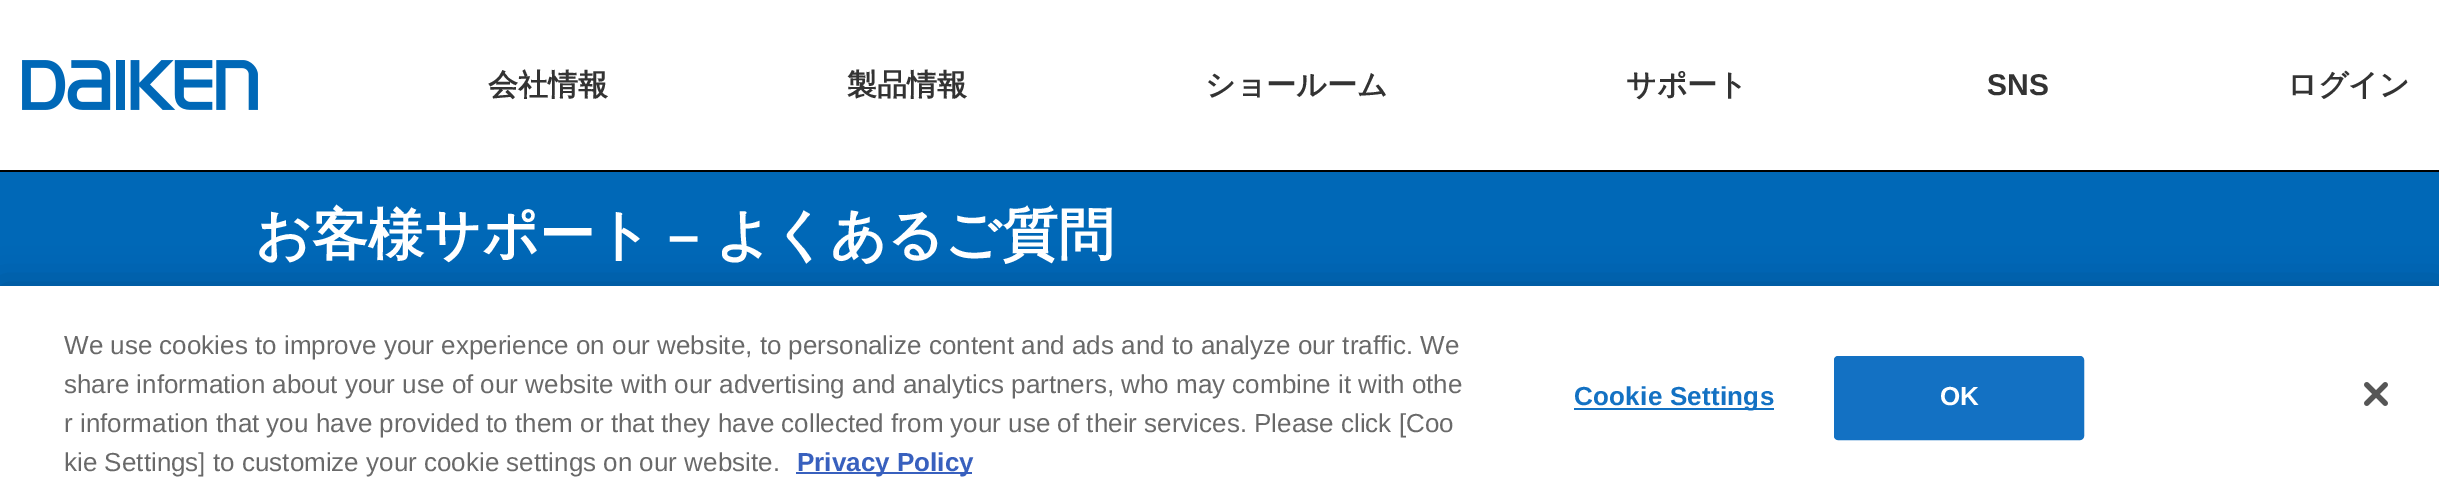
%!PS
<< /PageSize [2439 502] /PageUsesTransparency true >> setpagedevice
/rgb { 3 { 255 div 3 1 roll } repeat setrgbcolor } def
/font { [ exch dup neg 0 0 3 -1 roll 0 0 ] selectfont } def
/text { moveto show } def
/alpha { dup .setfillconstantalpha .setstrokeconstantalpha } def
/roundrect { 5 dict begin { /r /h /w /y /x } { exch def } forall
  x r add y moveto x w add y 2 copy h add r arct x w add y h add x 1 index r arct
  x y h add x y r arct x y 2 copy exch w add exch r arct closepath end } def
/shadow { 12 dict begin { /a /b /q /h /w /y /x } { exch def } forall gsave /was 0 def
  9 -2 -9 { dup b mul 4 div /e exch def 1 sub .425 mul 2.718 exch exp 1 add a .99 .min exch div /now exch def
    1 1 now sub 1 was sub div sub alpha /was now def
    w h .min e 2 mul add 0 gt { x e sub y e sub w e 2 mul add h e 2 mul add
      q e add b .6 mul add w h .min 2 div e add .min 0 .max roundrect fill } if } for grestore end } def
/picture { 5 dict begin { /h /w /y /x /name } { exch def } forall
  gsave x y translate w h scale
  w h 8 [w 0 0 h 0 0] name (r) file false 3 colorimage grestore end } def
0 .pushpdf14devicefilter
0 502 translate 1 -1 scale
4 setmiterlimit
255 255 255 rgb
0 0 2439 502 rectfill
(img_01.rgb) 22 60 236 50 picture
0 0 0 rgb
0 170 2439 2 rectfill
0 104 183 rgb
0 172 2439 114 rectfill
0 0 0 rgb
0 286 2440 216 0 18 0.2 shadow
255 255 255 rgb
0 286 2439 216 rectfill
56 96 190 rgb
796 472 176 2 rectfill
19 113 195 rgb
1574 408 200 2 rectfill
1835 357 248 82 3 roundrect gsave fill grestore
2 setlinewidth
stroke
(img_02.rgb) 2364 382 24 24 picture
/WenQuanYiZenHei-Bold 30 font
51 51 51 rgb
(会社情報) 488 95 text
(製品情報) 847 95 text
(ショールーム) 1205 95 text
(サポート) 1626 95 text
/LiberationSans-Bold 30 font
(SNS) 1987 95 text
/WenQuanYiZenHei-Bold 30 font
(ログイン) 2287 95 text
/WenQuanYiZenHei-Bold 56 font
255 255 255 rgb
(お客様サポート) 255 254 text
/LiberationSans-Bold 56 font
(–) 668 254 text
/WenQuanYiZenHei-Bold 56 font
(よくあるご質問) 715 254 text
/LiberationSans-Regular 26.02 font
105 105 105 rgb
(We use cookies to improve your experience on our website, to personalize content and ads and to analyze our traffic. We) 64 354 text
(share information about your use of our website with our advertising and analytics partners, who may combine it with othe) 64 393 text
(r information that you have provided to them or that they have collected from your use of their services. Please click [Coo) 64 432 text
(kie Settings] to customize your cookie settings on our website.) 64 471 text
/LiberationSans-Bold 26.02 font
56 96 190 rgb
(Privacy Policy) 797 471 text
19 113 195 rgb
1574 405 moveto 0.25 0 (Cookie Settings) ashow
255 255 255 rgb
1940 405 moveto 0.25 0 (OK) ashow
.poppdf14devicefilter showpage
